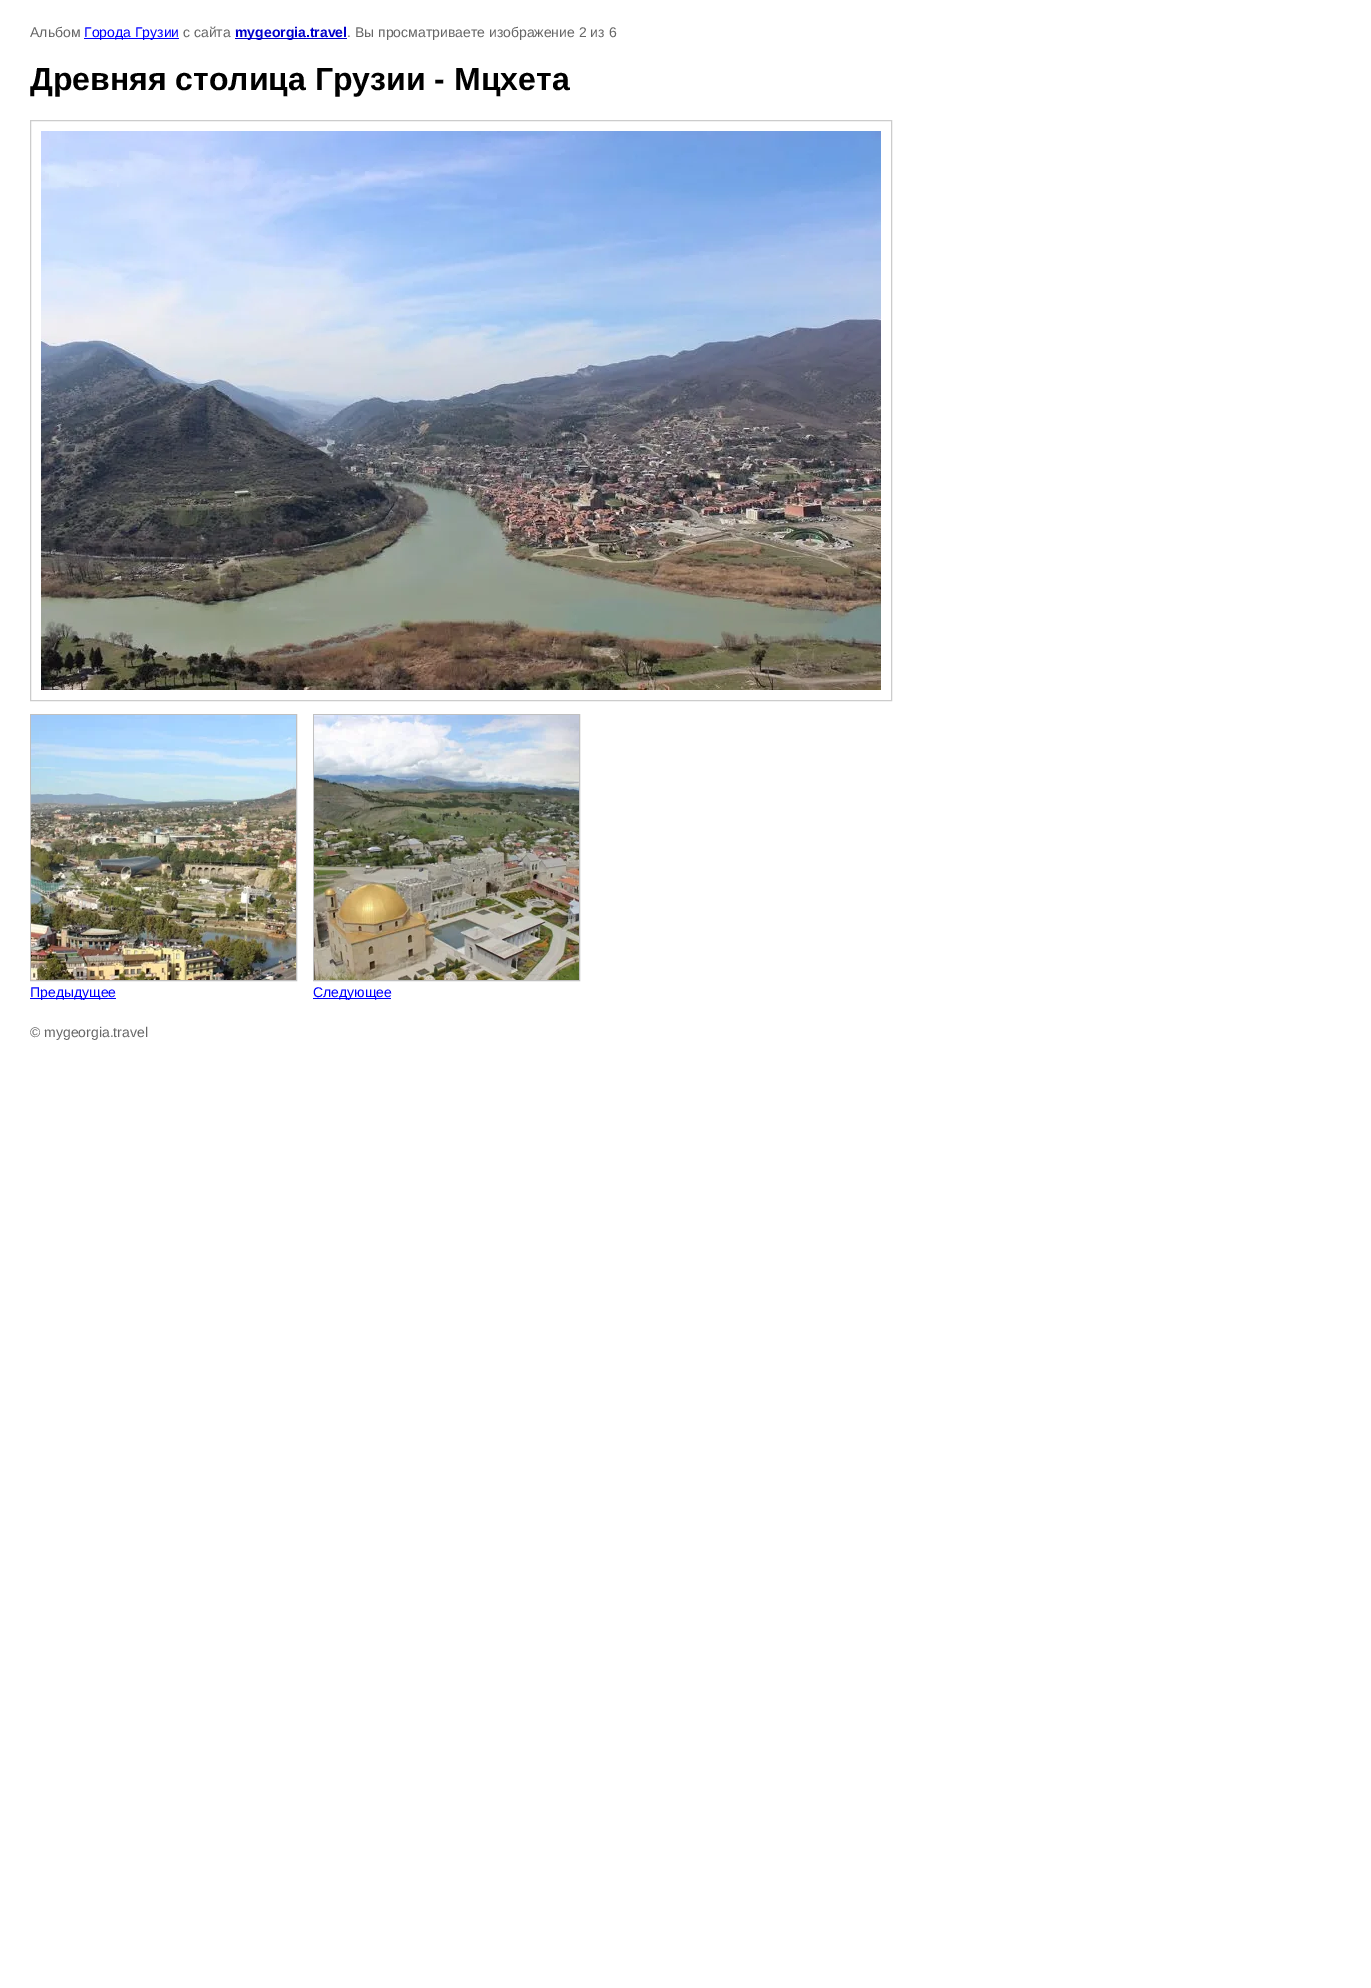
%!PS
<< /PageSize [1371 1988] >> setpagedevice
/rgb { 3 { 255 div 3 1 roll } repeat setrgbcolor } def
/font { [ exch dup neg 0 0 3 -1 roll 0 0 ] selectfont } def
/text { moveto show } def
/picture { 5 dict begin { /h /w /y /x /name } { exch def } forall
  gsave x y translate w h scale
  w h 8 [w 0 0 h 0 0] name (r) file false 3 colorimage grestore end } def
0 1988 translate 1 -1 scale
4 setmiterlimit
255 255 255 rgb
0 0 1371 1988 rectfill
0 0 255 rgb
84 38 95 1 rectfill
0 0 204 rgb
235 38 112 1 rectfill
204 204 204 rgb
30.5 120.5 861 580 rectstroke
(img_01.rgb) 41 131 840 559 picture
192 192 192 rgb
30.5 714.5 266 266 rectstroke
(img_02.rgb) 31 715 265 265 picture
0 0 255 rgb
30 998 86 1 rectfill
192 192 192 rgb
313.5 714.5 266 266 rectstroke
(img_03.rgb) 314 715 265 265 picture
0 0 255 rgb
313 998 78 1 rectfill
/LiberationSans-Regular 14 font
102 102 102 rgb
(Альбом) 30 37 text
0 0 255 rgb
(Города Грузии) 84 37 text
102 102 102 rgb
(с сайта) 183 37 text
/LiberationSans-Bold 14 font
0 0 204 rgb
(mygeorgia.travel) 235 37 text
/LiberationSans-Regular 14 font
102 102 102 rgb
(. Вы просматриваете изображение 2 из 6) 347 37 text
/LiberationSans-Bold 32 font
0 0 0 rgb
(Древняя столица Грузии - Мцхета) 30 90 text
/LiberationSans-Regular 14 font
0 0 255 rgb
(Предыдущее) 30 997 text
(Следующее) 313 997 text
102 102 102 rgb
(© mygeorgia.travel) 30 1037 text
showpage
